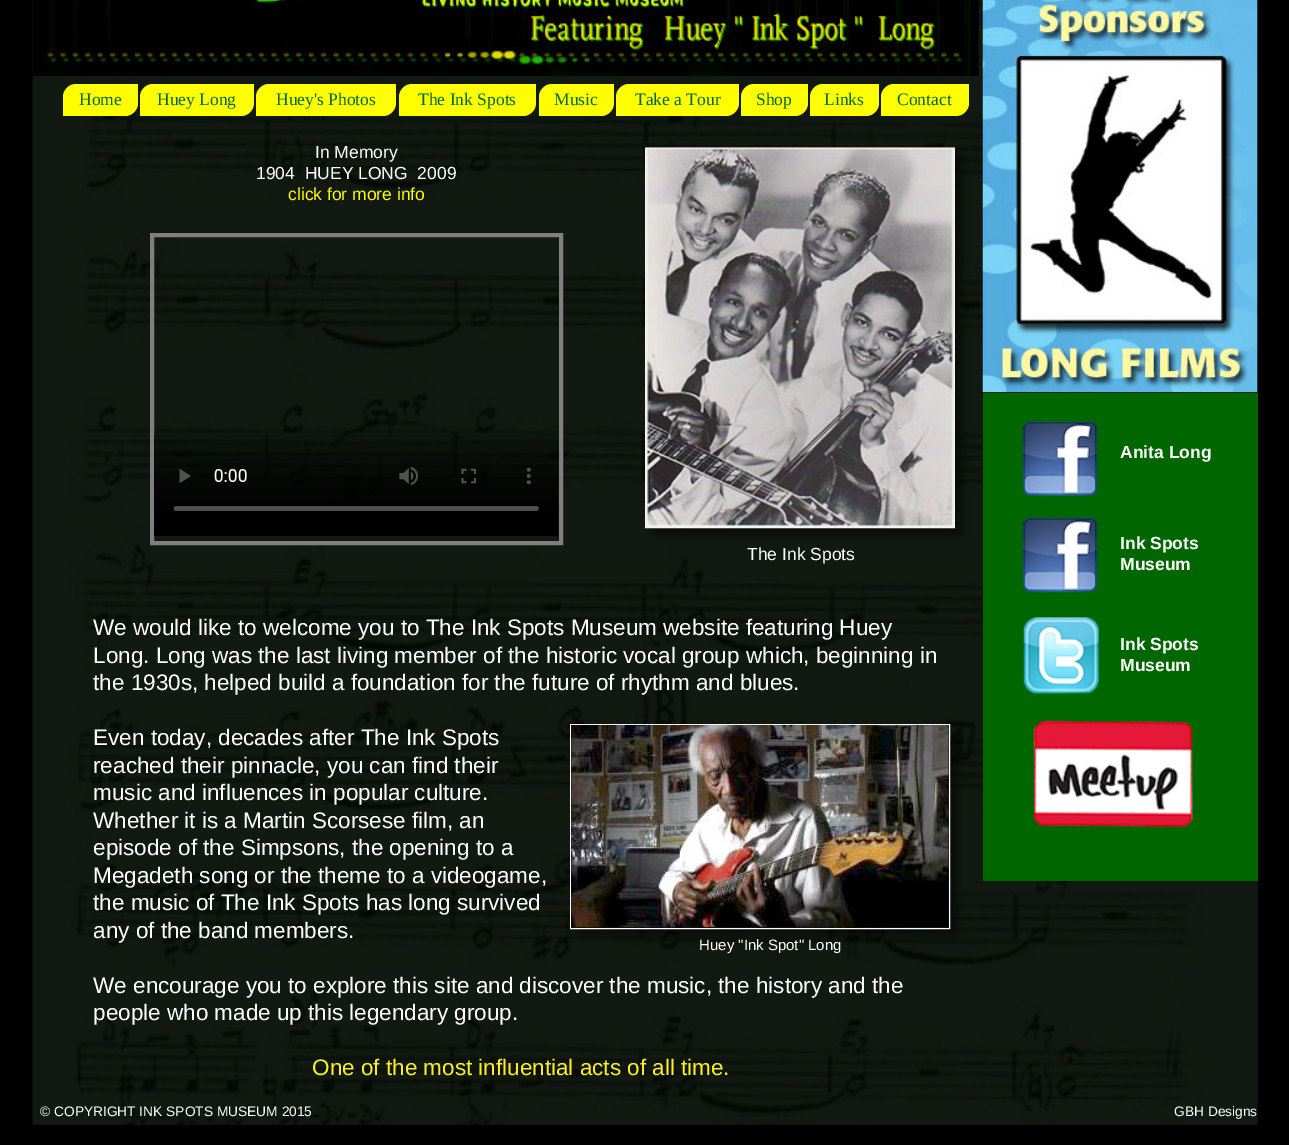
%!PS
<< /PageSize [1289 1145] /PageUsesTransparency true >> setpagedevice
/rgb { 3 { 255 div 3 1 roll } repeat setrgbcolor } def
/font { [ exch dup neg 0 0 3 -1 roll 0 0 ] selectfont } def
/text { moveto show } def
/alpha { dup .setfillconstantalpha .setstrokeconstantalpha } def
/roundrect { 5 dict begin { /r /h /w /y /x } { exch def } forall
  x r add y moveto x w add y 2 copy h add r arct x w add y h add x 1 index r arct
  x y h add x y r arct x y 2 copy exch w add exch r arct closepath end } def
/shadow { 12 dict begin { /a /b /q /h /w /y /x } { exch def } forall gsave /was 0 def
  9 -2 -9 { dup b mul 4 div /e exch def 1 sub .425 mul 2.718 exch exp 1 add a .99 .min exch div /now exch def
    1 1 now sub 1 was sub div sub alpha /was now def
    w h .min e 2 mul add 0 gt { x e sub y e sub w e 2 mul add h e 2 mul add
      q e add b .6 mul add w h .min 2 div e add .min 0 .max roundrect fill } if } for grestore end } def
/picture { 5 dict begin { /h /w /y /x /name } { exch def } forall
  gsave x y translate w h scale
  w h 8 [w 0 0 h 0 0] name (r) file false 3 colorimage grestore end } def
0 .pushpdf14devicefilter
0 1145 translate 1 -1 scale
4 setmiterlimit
0 0 0 rgb
0 0 1289 1145 rectfill
0 8 0 rgb
33 0 1225 1125 rectfill
(img_01.rgb) 32 0 1226 1125 picture
(img_02.rgb) 33 0 946 76 picture
255 255 0 rgb
76 84 moveto 62 0 rlineto 0 19 rlineto 0 7 -6 13 -13 13 rcurveto -62 0 rlineto 0 -19 rlineto 0 -7 6 -13 13 -13 rcurveto closepath fill
153 84 moveto 101 0 rlineto 0 19 rlineto 0 7 -6 13 -13 13 rcurveto -101 0 rlineto 0 -19 rlineto 0 -7 6 -13 13 -13 rcurveto closepath fill
269 84 moveto 127 0 rlineto 0 19 rlineto 0 7 -6 13 -13 13 rcurveto -127 0 rlineto 0 -19 rlineto 0 -7 6 -13 13 -13 rcurveto closepath fill
412 84 moveto 124 0 rlineto 0 19 rlineto 0 7 -6 13 -13 13 rcurveto -124 0 rlineto 0 -19 rlineto 0 -7 6 -13 13 -13 rcurveto closepath fill
552 84 moveto 62 0 rlineto 0 19 rlineto 0 7 -6 13 -13 13 rcurveto -62 0 rlineto 0 -19 rlineto 0 -7 6 -13 13 -13 rcurveto closepath fill
629 84 moveto 110 0 rlineto 0 19 rlineto 0 7 -6 13 -13 13 rcurveto -110 0 rlineto 0 -19 rlineto 0 -7 6 -13 13 -13 rcurveto closepath fill
754 84 moveto 54 0 rlineto 0 19 rlineto 0 7 -6 13 -13 13 rcurveto -54 0 rlineto 0 -19 rlineto 0 -7 6 -13 13 -13 rcurveto closepath fill
823 84 moveto 56 0 rlineto 0 19 rlineto 0 7 -6 13 -13 13 rcurveto -56 0 rlineto 0 -19 rlineto 0 -7 6 -13 13 -13 rcurveto closepath fill
894 84 moveto 75 0 rlineto 0 19 rlineto 0 7 -6 13 -13 13 rcurveto -75 0 rlineto 0 -19 rlineto 0 -7 6 -13 13 -13 rcurveto closepath fill
127 127 127 rgb
4 setlinewidth
152 235 409 308 rectstroke
(img_03.rgb) 154 435 405 101 picture
0 0 0 rgb
653 155 310 381 0 5 0.5 shadow
(img_04.rgb) 645 147 310 382 picture
578 731 380 205 0 5 0.5 shadow
255 255 255 rgb
1 setlinewidth
570.5 724.5 379 204 rectstroke
(img_05.rgb) 571 724 378 204 picture
(img_06.rgb) 982 0 276 393 picture
0 102 0 rgb
983 393 275 488 rectfill
(img_07.rgb) 1023 617 76 77 picture
(img_08.rgb) 1022 421 76 76 picture
(img_09.rgb) 1022 517 76 76 picture
(img_10.rgb) 1033 720 160 108 picture
/LiberationSerif-Regular 17.5 font
0 104 55 rgb
(Home) 79 105 text
(Huey Long) 157 105 text
(Huey's Photos) 276 105 text
(The Ink Spots) 418 105 text
(Music) 554 105 text
(Take a Tour) 635 105 text
(Shop) 756 105 text
(Links) 824 105 text
(Contact) 897 105 text
/LiberationSans-Regular 17.5 font
255 255 255 rgb
(In Memory) 315 158 text
(1904  HUEY LONG  2009) 256 179 text
255 255 0 rgb
(click for more info) 288 200 text
255 255 255 rgb
(The Ink Spots) 747 560 text
/LiberationSans-Regular 22.5 font
(We would like to welcome you to The Ink Spots Museum website featuring Huey) 93 635 text
(Long. Long was the last living member of the historic vocal group which, beginning in) 93 663 text
(the 1930s, helped build a foundation for the future of rhythm and blues.) 93 690 text
(Even today, decades after The Ink Spots) 93 745 text
(reached their pinnacle, you can find their) 93 773 text
(music and influences in popular culture.) 93 800 text
(Whether it is a Martin Scorsese film, an) 93 828 text
(episode of the Simpsons, the opening to a) 93 855 text
(Megadeth song or the theme to a videogame,) 93 883 text
(the music of The Ink Spots has long survived) 93 910 text
(any of the band members.) 93 938 text
(We encourage you to explore this site and discover the music, the history and the) 93 993 text
(people who made up this legendary group.) 93 1020 text
252 238 33 rgb
(One of the most influential acts of all time.) 312 1075 text
/LiberationSans-Regular 15 font
255 255 255 rgb
(Huey "Ink Spot" Long) 699 950 text
/LiberationSans-Bold 17.5 font
(Anita Long) 1120 458 text
(Ink Spots) 1120 549 text
(Museum) 1120 570 text
(Ink Spots) 1120 650 text
(Museum) 1120 671 text
/LiberationSans-Regular 13.75 font
(© COPYRIGHT INK SPOTS MUSEUM 2015) 40 1116 text
(GBH Designs) 1174 1116 text
.poppdf14devicefilter showpage
